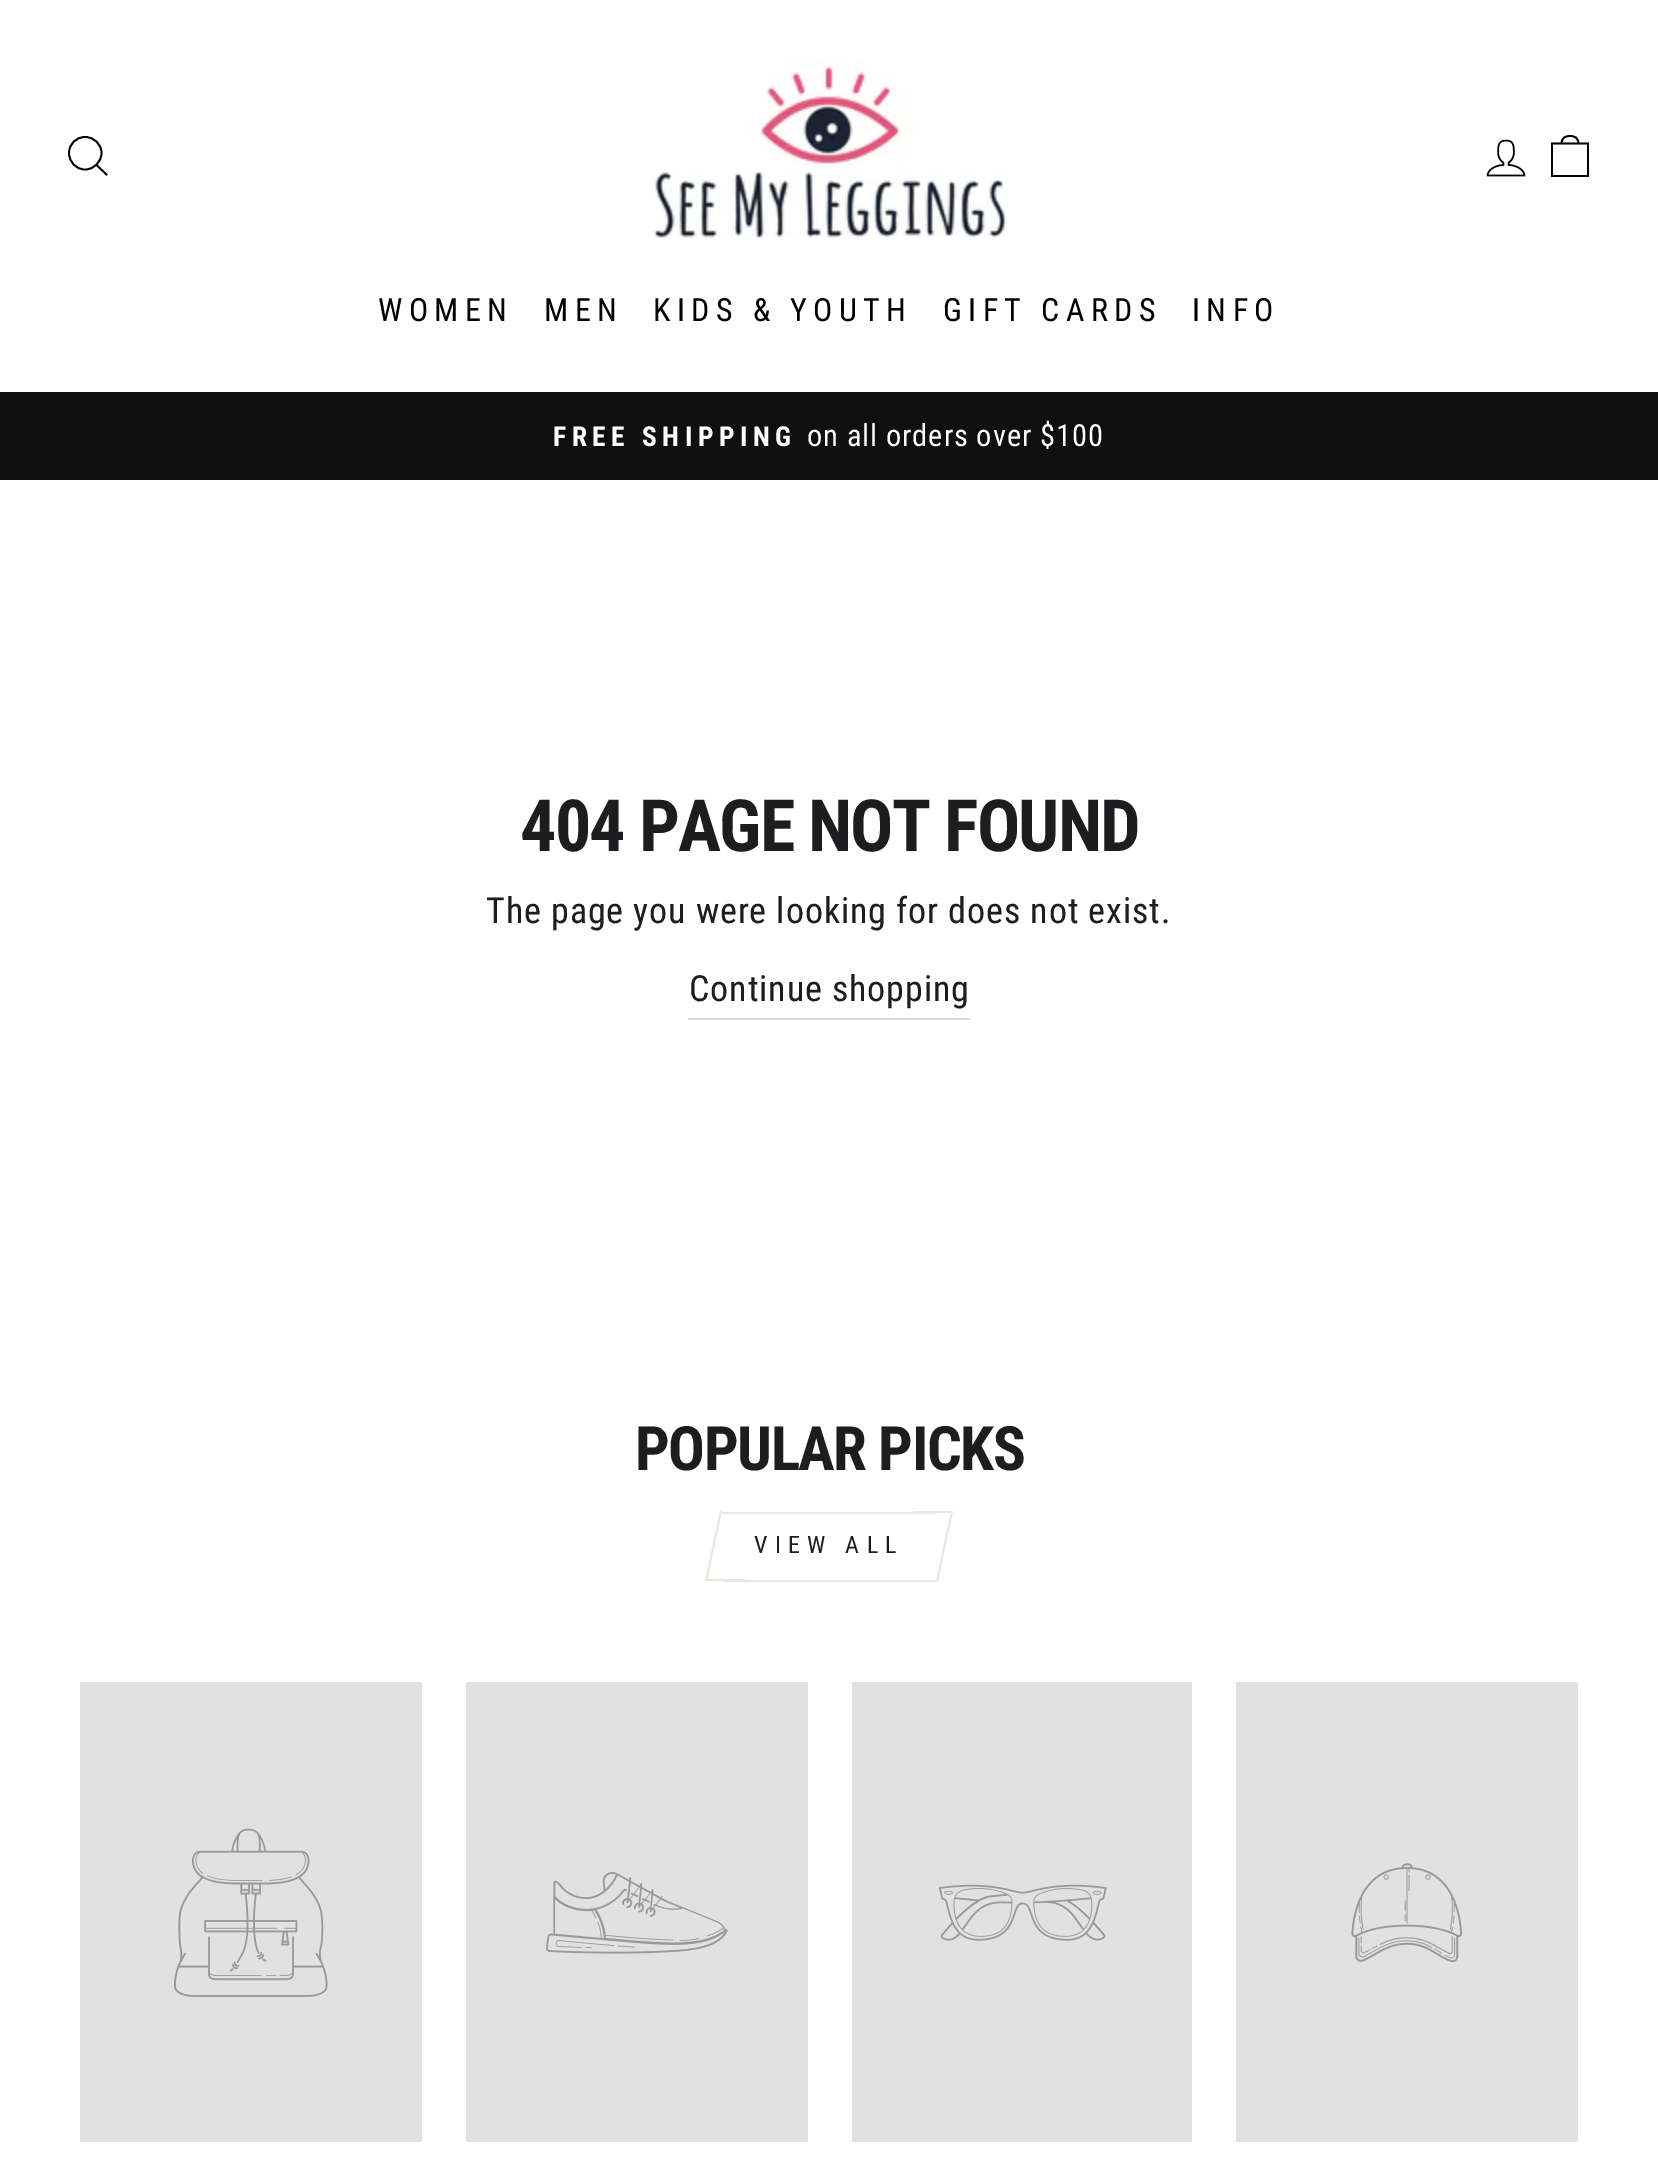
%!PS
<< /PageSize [1658 2182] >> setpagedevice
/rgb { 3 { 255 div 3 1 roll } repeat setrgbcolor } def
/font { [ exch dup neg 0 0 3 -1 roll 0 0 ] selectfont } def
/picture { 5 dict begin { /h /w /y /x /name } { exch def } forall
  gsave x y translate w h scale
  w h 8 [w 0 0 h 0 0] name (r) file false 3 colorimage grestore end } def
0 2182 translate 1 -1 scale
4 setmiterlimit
255 255 255 rgb
0 0 1658 2182 rectfill
0 0 0 rgb
1.8 setlinewidth
101.5 153 moveto 0 9 -7.5 16.5 -16.5 16.5 rcurveto -9 0 -16 -7.5 -16 -16.5 rcurveto 0 -9 7 -16 16 -16 rcurveto 9 0 16.5 7 16.5 16 rcurveto closepath 107 175 moveto -10.5 -10 rlineto stroke
(img_01.rgb) 653 61 355 177 picture
(img_02.rgb) 1486 139 40 38 picture
1552 143.5 moveto 36 0 rlineto 0 32.5 rlineto -36 0 rlineto closepath 1561.5 144 moveto 0 -6.5 4 -8 8.5 -8 rcurveto 4.5 0 8.5 1.5 8.5 8 rcurveto stroke
15 15 15 rgb
0 392 1658 88 rectfill
221 221 221 rgb
688 1018 282 2 rectfill
232 232 225 rgb
722 1512 214 2 rectfill
722 1580 214 2 rectfill
705 1579 40 2 rectfill
720 1511 moveto 2 0 rlineto -15 70 rlineto -2 0 rlineto closepath fill
913 1511 40 2 rectfill
951 1511 moveto 2 0 rlineto -15 70 rlineto -2 0 rlineto closepath fill
225 225 225 rgb
80 1682 342 460 rectfill
(img_03.rgb) 174 1828 154 169 picture
466 1682 342 460 rectfill
(img_04.rgb) 545 1872 183 82 picture
852 1682 340 460 rectfill
(img_05.rgb) 939 1884 168 57 picture
1236 1682 342 460 rectfill
(img_06.rgb) 1351 1863 112 100 picture
/RobotoCondensed-Regular 32 font
0 0 0 rgb
378 321 moveto 6.4 0 (WOMEN) ashow
544 321 moveto 6.4 0 (MEN) ashow
653 321 moveto 6.4 0 (KIDS & YOUTH) ashow
943 321 moveto 6.4 0 (GIFT CARDS) ashow
1192 321 moveto 6.4 0 (INFO) ashow
/RobotoCondensed-Bold 27.5 font
255 255 255 rgb
553 446 moveto 5.5 0 (FREE SHIPPING) ashow
/RobotoCondensed-Regular 30.5 font
807 446 moveto 0.9 0 (on all orders over $100) ashow
/RobotoCondensed-Bold 72 font
29 29 31 rgb
520 851 moveto -1.75 0 (404 PAGE NOT FOUND) ashow
/RobotoCondensed-Regular 36 font
486 923 moveto 0.9 0 (The page you were looking for does not exist.) ashow
689 1001 moveto 0.9 0 (Continue shopping) ashow
/RobotoCondensed-Bold 61.25 font
635 1470 moveto -1.5 0 (POPULAR PICKS) ashow
/RobotoCondensed-Regular 24 font
754 1553 moveto 7.25 0 (VIEW ALL) ashow
showpage
